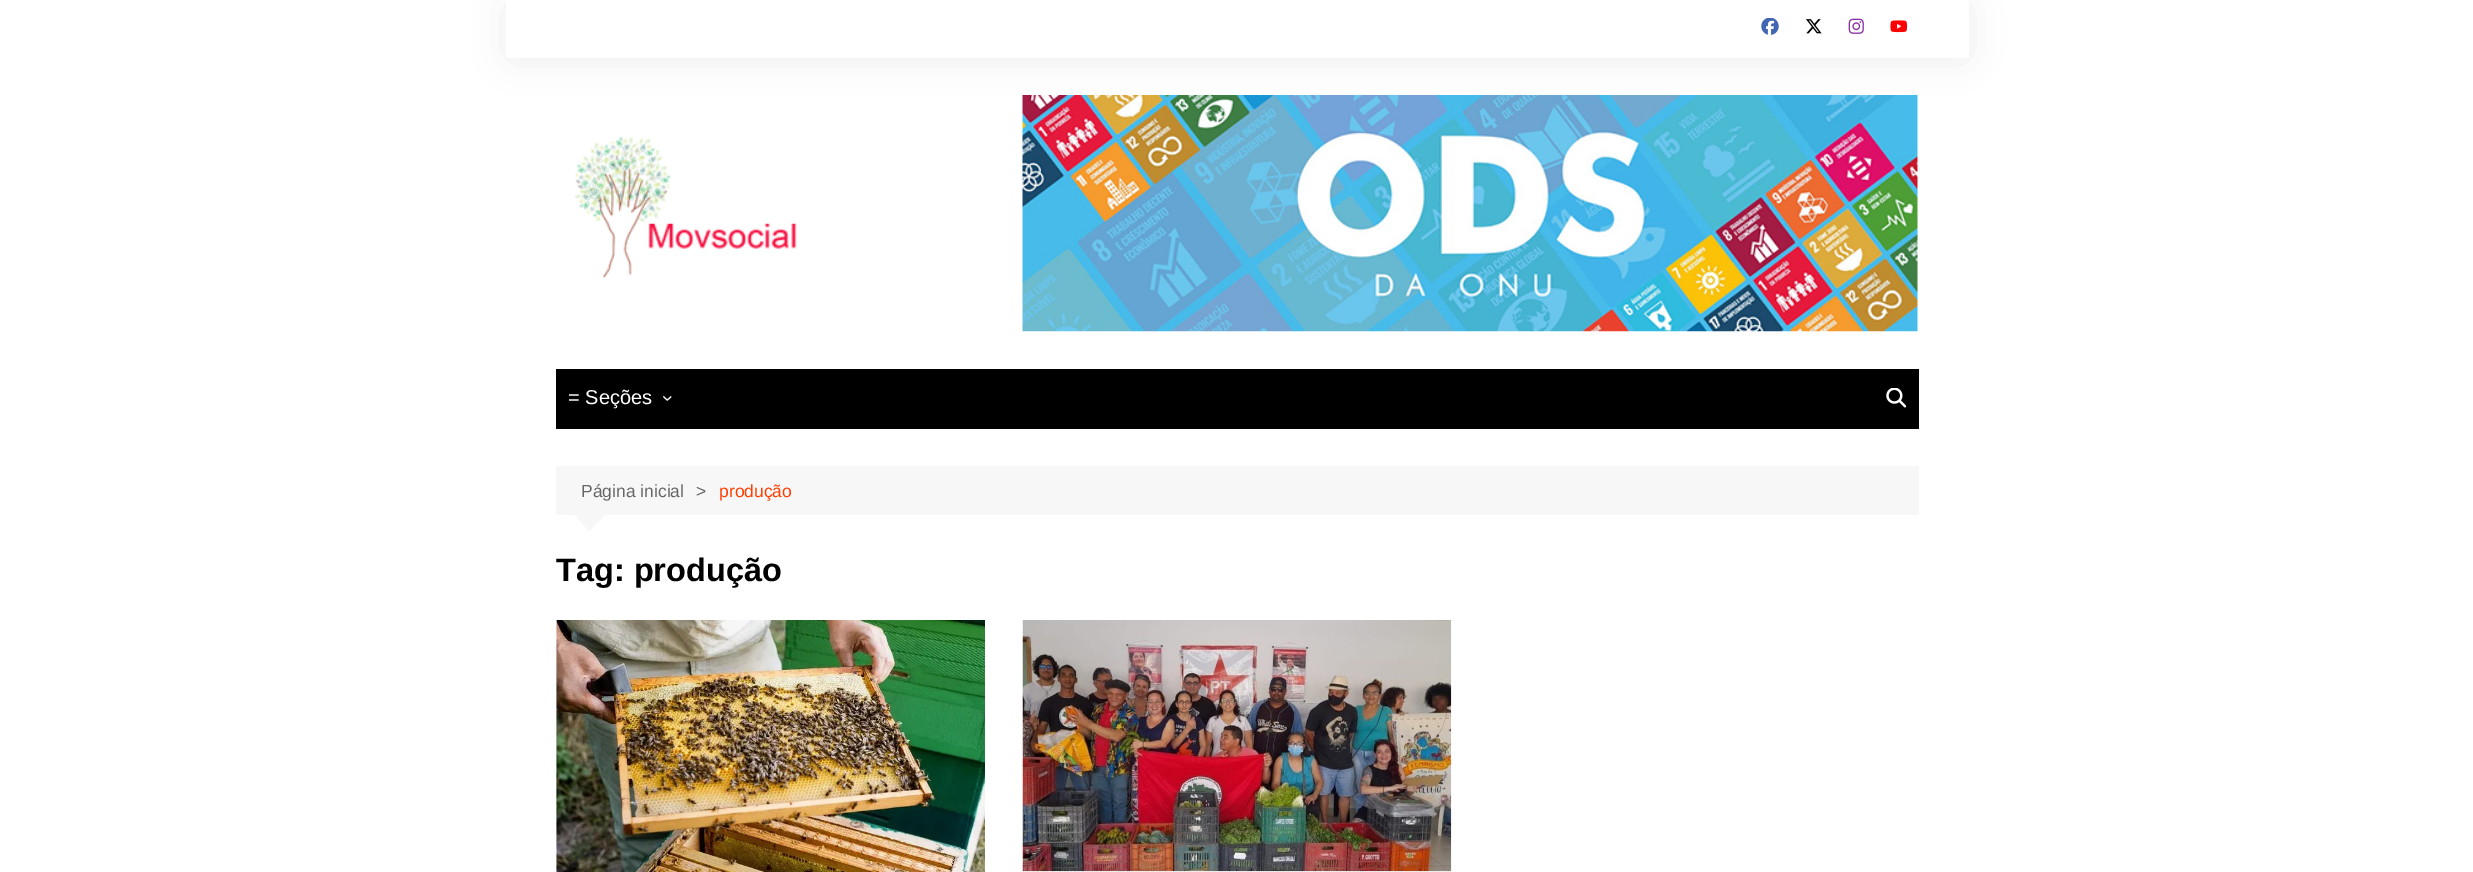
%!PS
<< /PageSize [2473 872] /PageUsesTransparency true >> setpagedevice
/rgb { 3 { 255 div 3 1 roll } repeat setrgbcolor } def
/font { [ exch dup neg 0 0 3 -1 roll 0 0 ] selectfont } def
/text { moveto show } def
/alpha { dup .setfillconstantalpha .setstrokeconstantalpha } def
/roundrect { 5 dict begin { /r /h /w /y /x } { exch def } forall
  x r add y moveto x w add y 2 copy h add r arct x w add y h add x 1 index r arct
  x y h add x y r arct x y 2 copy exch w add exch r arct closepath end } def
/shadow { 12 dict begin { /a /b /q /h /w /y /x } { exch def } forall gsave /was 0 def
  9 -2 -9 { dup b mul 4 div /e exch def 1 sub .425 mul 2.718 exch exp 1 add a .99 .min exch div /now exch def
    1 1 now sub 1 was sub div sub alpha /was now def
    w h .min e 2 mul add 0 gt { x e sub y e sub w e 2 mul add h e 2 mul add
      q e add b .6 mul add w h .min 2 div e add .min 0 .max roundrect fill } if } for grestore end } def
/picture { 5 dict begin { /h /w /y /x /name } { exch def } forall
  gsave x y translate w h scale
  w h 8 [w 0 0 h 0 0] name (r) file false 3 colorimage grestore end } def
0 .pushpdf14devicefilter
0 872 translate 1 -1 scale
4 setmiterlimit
255 255 255 rgb
0 0 2473 872 rectfill
0 0 0 rgb
513 9 1450 45 0 19 0.1 shadow
255 255 255 rgb
506 0 1463 58 rectfill
(img_01.rgb) 1761 18 18 17 picture
(img_02.rgb) 1806 19 16 15 picture
(img_03.rgb) 1848 18 16 16 picture
(img_04.rgb) 1890 20 18 13 picture
(img_05.rgb) 574 136 223 142 picture
(img_06.rgb) 1022 95 896 237 picture
0 0 0 rgb
556 369 1363 60 rectfill
(img_07.rgb) 1886 388 20 20 picture
247 247 247 rgb
556 466 1363 49 rectfill
574.5 515 moveto 30 0 rlineto -15 16.5 rlineto closepath fill
(img_08.rgb) 556 620 429 252 picture
243 243 243 rgb
1023.5 871.5 427 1 rectstroke
(img_09.rgb) 1022 620 430 252 picture
/LiberationSans-Regular 20 font
255 255 255 rgb
(= Seções) 568 404 text
gsave 662 395 translate 90 rotate 0 0 moveto (›) show grestore
/LiberationSans-Regular 17.5 font
102 102 102 rgb
(Página inicial) 581 497 text
(>) 696 497 text
255 61 0 rgb
(produção) 719 497 text
/LiberationSans-Bold 32.5 font
1 1 1 rgb
(Tag: produção) 556 581 text
.poppdf14devicefilter showpage
